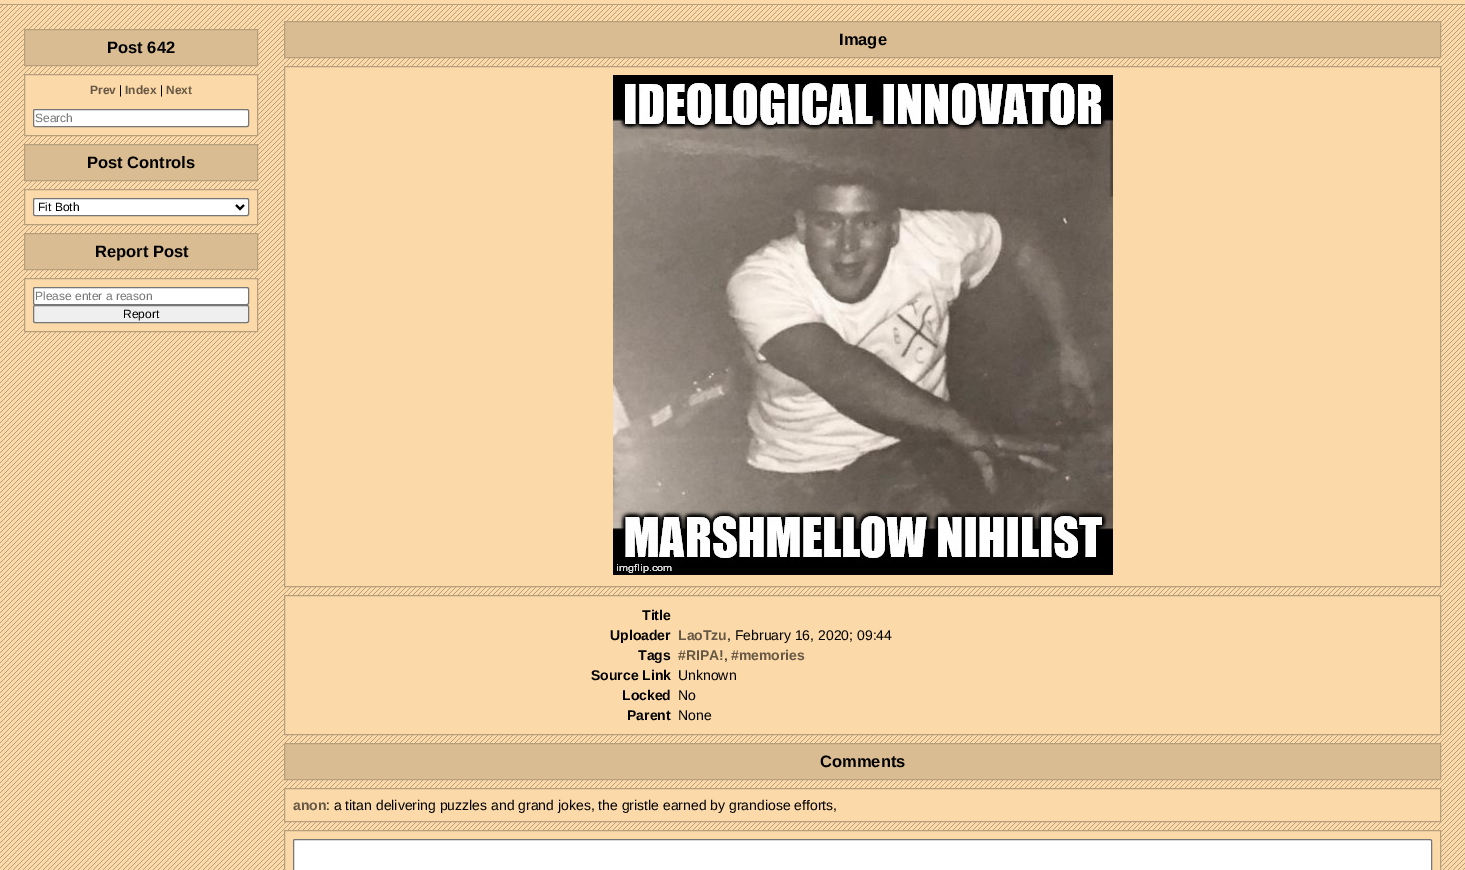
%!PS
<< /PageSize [1465 870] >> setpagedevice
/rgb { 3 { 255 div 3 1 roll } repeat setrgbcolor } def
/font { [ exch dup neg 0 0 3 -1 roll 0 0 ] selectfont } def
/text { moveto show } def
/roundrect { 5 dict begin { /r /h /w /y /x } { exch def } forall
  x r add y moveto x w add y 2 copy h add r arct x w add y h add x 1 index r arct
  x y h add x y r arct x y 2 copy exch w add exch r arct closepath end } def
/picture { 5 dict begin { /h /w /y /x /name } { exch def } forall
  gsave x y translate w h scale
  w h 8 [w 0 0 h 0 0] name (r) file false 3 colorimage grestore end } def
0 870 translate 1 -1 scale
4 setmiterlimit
255 255 255 rgb
0 0 1465 870 rectfill
(img_01.rgb) 0 5 1465 865 picture
252 217 169 rgb
0 0 1465 4 rectfill
184 159 124 rgb
0 4 1465 1 rectfill
218 188 146 rgb
24.5 29.5 moveto 233 0 rlineto 0 36 rlineto -233 0 rlineto closepath gsave fill grestore
184 159 124 rgb
stroke
252 217 169 rgb
24.5 74.5 moveto 233 0 rlineto 0 61 rlineto -233 0 rlineto closepath gsave fill grestore
184 159 124 rgb
stroke
255 255 255 rgb
33.5 109.5 215 17 1.5 roundrect gsave fill grestore
118 118 118 rgb
stroke
218 188 146 rgb
24.5 144.5 moveto 233 0 rlineto 0 36 rlineto -233 0 rlineto closepath gsave fill grestore
184 159 124 rgb
stroke
252 217 169 rgb
24.5 189.5 moveto 233 0 rlineto 0 35 rlineto -233 0 rlineto closepath gsave fill grestore
184 159 124 rgb
stroke
255 255 255 rgb
33.5 198.5 215 17 1.5 roundrect gsave fill grestore
118 118 118 rgb
stroke
0 0 0 rgb
2 setlinewidth
236 205 moveto 4 4 rlineto 4 -4 rlineto stroke
218 188 146 rgb
24.5 233.5 moveto 233 0 rlineto 0 36 rlineto -233 0 rlineto closepath gsave fill grestore
184 159 124 rgb
1 setlinewidth
stroke
252 217 169 rgb
24.5 278.5 moveto 233 0 rlineto 0 53 rlineto -233 0 rlineto closepath gsave fill grestore
184 159 124 rgb
stroke
255 255 255 rgb
33.5 287.5 215 17 1.5 roundrect gsave fill grestore
118 118 118 rgb
stroke
239 239 239 rgb
33.5 305.5 215 17 1.5 roundrect gsave fill grestore
118 118 118 rgb
stroke
218 188 146 rgb
284.5 21.5 moveto 1156 0 rlineto 0 36 rlineto -1156 0 rlineto closepath gsave fill grestore
184 159 124 rgb
stroke
252 217 169 rgb
284.5 66.5 moveto 1156 0 rlineto 0 520 rlineto -1156 0 rlineto closepath gsave fill grestore
184 159 124 rgb
stroke
(img_02.rgb) 613 75 500 500 picture
252 217 169 rgb
284.5 595.5 moveto 1156 0 rlineto 0 139 rlineto -1156 0 rlineto closepath gsave fill grestore
184 159 124 rgb
stroke
218 188 146 rgb
284.5 743.5 moveto 1156 0 rlineto 0 36 rlineto -1156 0 rlineto closepath gsave fill grestore
184 159 124 rgb
stroke
252 217 169 rgb
284.5 788.5 moveto 1156 0 rlineto 0 33 rlineto -1156 0 rlineto closepath gsave fill grestore
184 159 124 rgb
stroke
252 217 169 rgb
284.5 830.5 moveto 1156 0 rlineto 0 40 rlineto -1156 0 rlineto closepath gsave fill grestore
184 159 124 rgb
stroke
255 255 255 rgb
293.5 839.5 1138 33 1.5 roundrect gsave fill grestore
118 118 118 rgb
stroke
/LiberationSans-Bold 16.5 font
0 0 0 rgb
(Post 642) 107 53 text
/LiberationSans-Bold 12 font
102 88 68 rgb
(Prev) 90 94 text
/LiberationSans-Regular 12 font
0 0 0 rgb
(|) 119 94 text
/LiberationSans-Bold 12 font
102 88 68 rgb
(Index) 125 94 text
/LiberationSans-Regular 12 font
0 0 0 rgb
(|) 160 94 text
/LiberationSans-Bold 12 font
102 88 68 rgb
(Next) 166 94 text
/LiberationSans-Regular 12 font
117 117 117 rgb
(Search) 35 122 text
/LiberationSans-Bold 16.5 font
0 0 0 rgb
(Post Controls) 87 168 text
/LiberationSans-Regular 12 font
(Fit Both) 38 211 text
/LiberationSans-Bold 16.5 font
(Report Post) 95 257 text
/LiberationSans-Regular 12 font
117 117 117 rgb
(Please enter a reason) 35 300 text
0 0 0 rgb
(Report) 123 318 text
/LiberationSans-Bold 16.5 font
(Image) 839 45 text
/LiberationSans-Bold 14 font
(Title) 642 620 text
(Uploader) 610 640 text
102 88 68 rgb
(LaoTzu) 678 640 text
/LiberationSans-Regular 14 font
0 0 0 rgb
(, February 16, 2020; 09:44) 727 640 text
/LiberationSans-Bold 14 font
(Tags) 638 660 text
102 88 68 rgb
(#RIPA!) 678 660 text
/LiberationSans-Regular 14 font
0 0 0 rgb
(,) 724 660 text
/LiberationSans-Bold 14 font
102 88 68 rgb
(#memories) 731 660 text
0 0 0 rgb
(Source Link) 591 680 text
/LiberationSans-Regular 14 font
(Unknown) 678 680 text
/LiberationSans-Bold 14 font
(Locked) 622 700 text
/LiberationSans-Regular 14 font
(No) 678 700 text
/LiberationSans-Bold 14 font
(Parent) 627 720 text
/LiberationSans-Regular 14 font
(None) 678 720 text
/LiberationSans-Bold 16.5 font
(Comments) 820 767 text
/LiberationSans-Bold 14 font
102 88 68 rgb
(anon) 293 810 text
/LiberationSans-Regular 14 font
0 0 0 rgb
(: a titan delivering puzzles and grand jokes, the gristle earned by grandiose efforts,) 326 810 text
showpage
